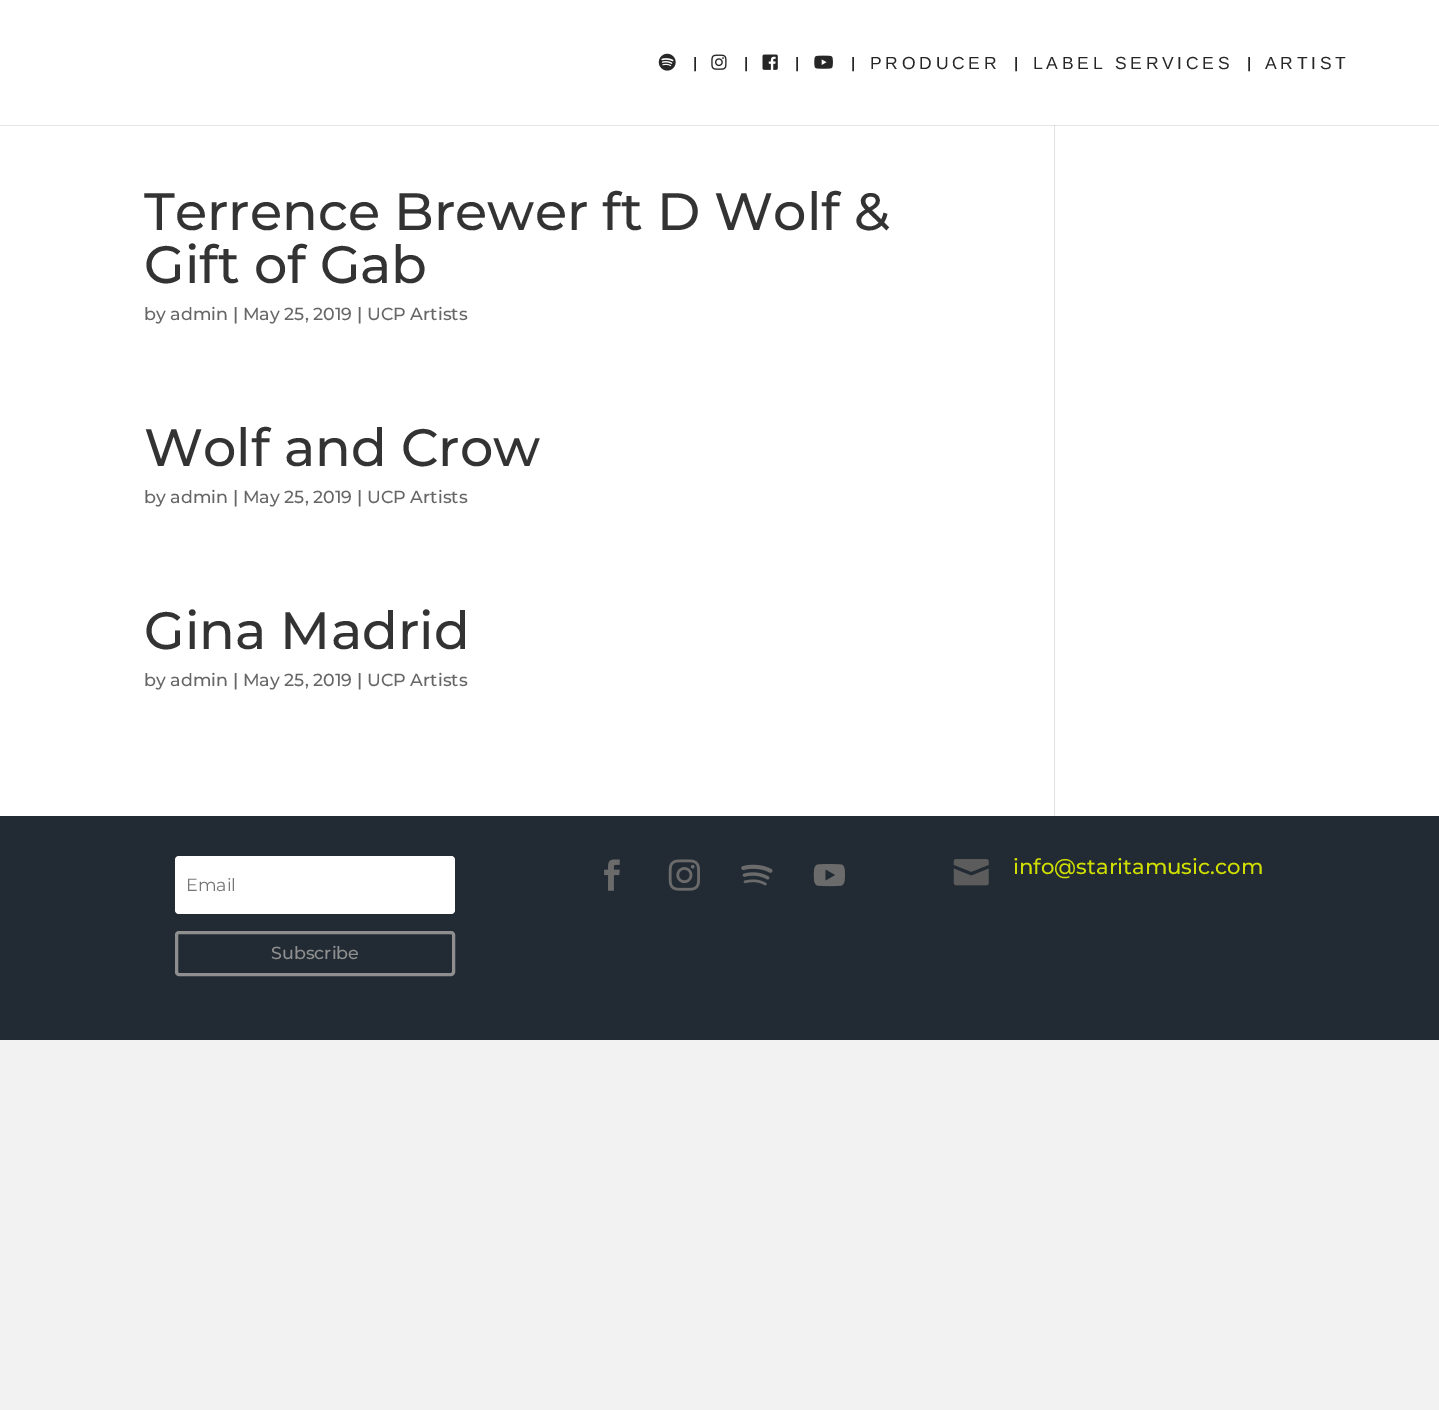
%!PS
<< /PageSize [1439 1410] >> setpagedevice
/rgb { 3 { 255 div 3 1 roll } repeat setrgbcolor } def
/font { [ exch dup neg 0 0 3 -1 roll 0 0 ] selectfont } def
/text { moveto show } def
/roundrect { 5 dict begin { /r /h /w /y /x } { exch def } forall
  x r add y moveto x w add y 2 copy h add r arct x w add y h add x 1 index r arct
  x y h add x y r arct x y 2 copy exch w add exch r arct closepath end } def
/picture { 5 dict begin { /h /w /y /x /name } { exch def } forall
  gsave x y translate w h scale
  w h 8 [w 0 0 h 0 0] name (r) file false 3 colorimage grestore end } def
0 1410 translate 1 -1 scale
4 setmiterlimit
242 242 242 rgb
0 0 1439 1410 rectfill
255 255 255 rgb
0 0 1439 125 rectfill
(img_01.rgb) 658 53 18 18 picture
(img_02.rgb) 711 54 16 16 picture
(img_03.rgb) 762 54 16 16 picture
(img_04.rgb) 814 55 19 14 picture
0 126 1439 690 rectfill
230 230 230 rgb
0 125 1439 1 rectfill
226 226 226 rgb
1054 126 1 690 rectfill
203 203 203 rgb
1054 125 1 1 rectfill
34 43 52 rgb
0 816 1439 224 rectfill
255 255 255 rgb
175 856 280 58 4 roundrect fill
143 143 143 rgb
3 setlinewidth
176.5 932.5 277 42 2.5 roundrect stroke
(img_05.rgb) 604 859 16 32 picture
(img_06.rgb) 668 859 32 32 picture
(img_07.rgb) 741 864 32 22 picture
(img_08.rgb) 813 864 32 23 picture
(img_09.rgb) 953 859 36 27 picture
/LiberationSans-Bold 15 font
38 38 38 rgb
(|) 693 68 text
(|) 744 68 text
(|) 795 68 text
(|) 851 68 text
/LiberationSans-Regular 17.5 font
870 69 moveto 3.75 0 (PRODUCER) ashow
/LiberationSans-Bold 15 font
(|) 1014 68 text
/LiberationSans-Regular 17.5 font
1033 69 moveto 3.75 0 (LABEL SERVICES) ashow
/LiberationSans-Bold 15 font
(|) 1247 68 text
/LiberationSans-Regular 17.5 font
1265 69 moveto 3.75 0 (ARTIST) ashow
/Montserrat-Thin 52.5 font
51 51 51 rgb
(Terrence Brewer ft D Wolf &) 144 230 text
(Gift of Gab) 144 283 text
/Montserrat-Thin 17.5 font
102 102 102 rgb
(by admin | May 25, 2019 | UCP Artists) 144 320 text
/Montserrat-Thin 52.5 font
51 51 51 rgb
(Wolf and Crow) 144 466 text
/Montserrat-Thin 17.5 font
102 102 102 rgb
(by admin | May 25, 2019 | UCP Artists) 144 503 text
/Montserrat-Thin 52.5 font
51 51 51 rgb
(Gina Madrid) 144 649 text
/Montserrat-Thin 17.5 font
102 102 102 rgb
(by admin | May 25, 2019 | UCP Artists) 144 686 text
/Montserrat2-Thin 17.5 font
117 117 117 rgb
(Email) 186 891 text
/Montserrat-Thin 17.5 font
143 143 143 rgb
(Subscribe) 271 959 text
/Montserrat-Thin 21.25 font
208 223 0 rgb
(info@staritamusic.com) 1013 874 text
showpage
